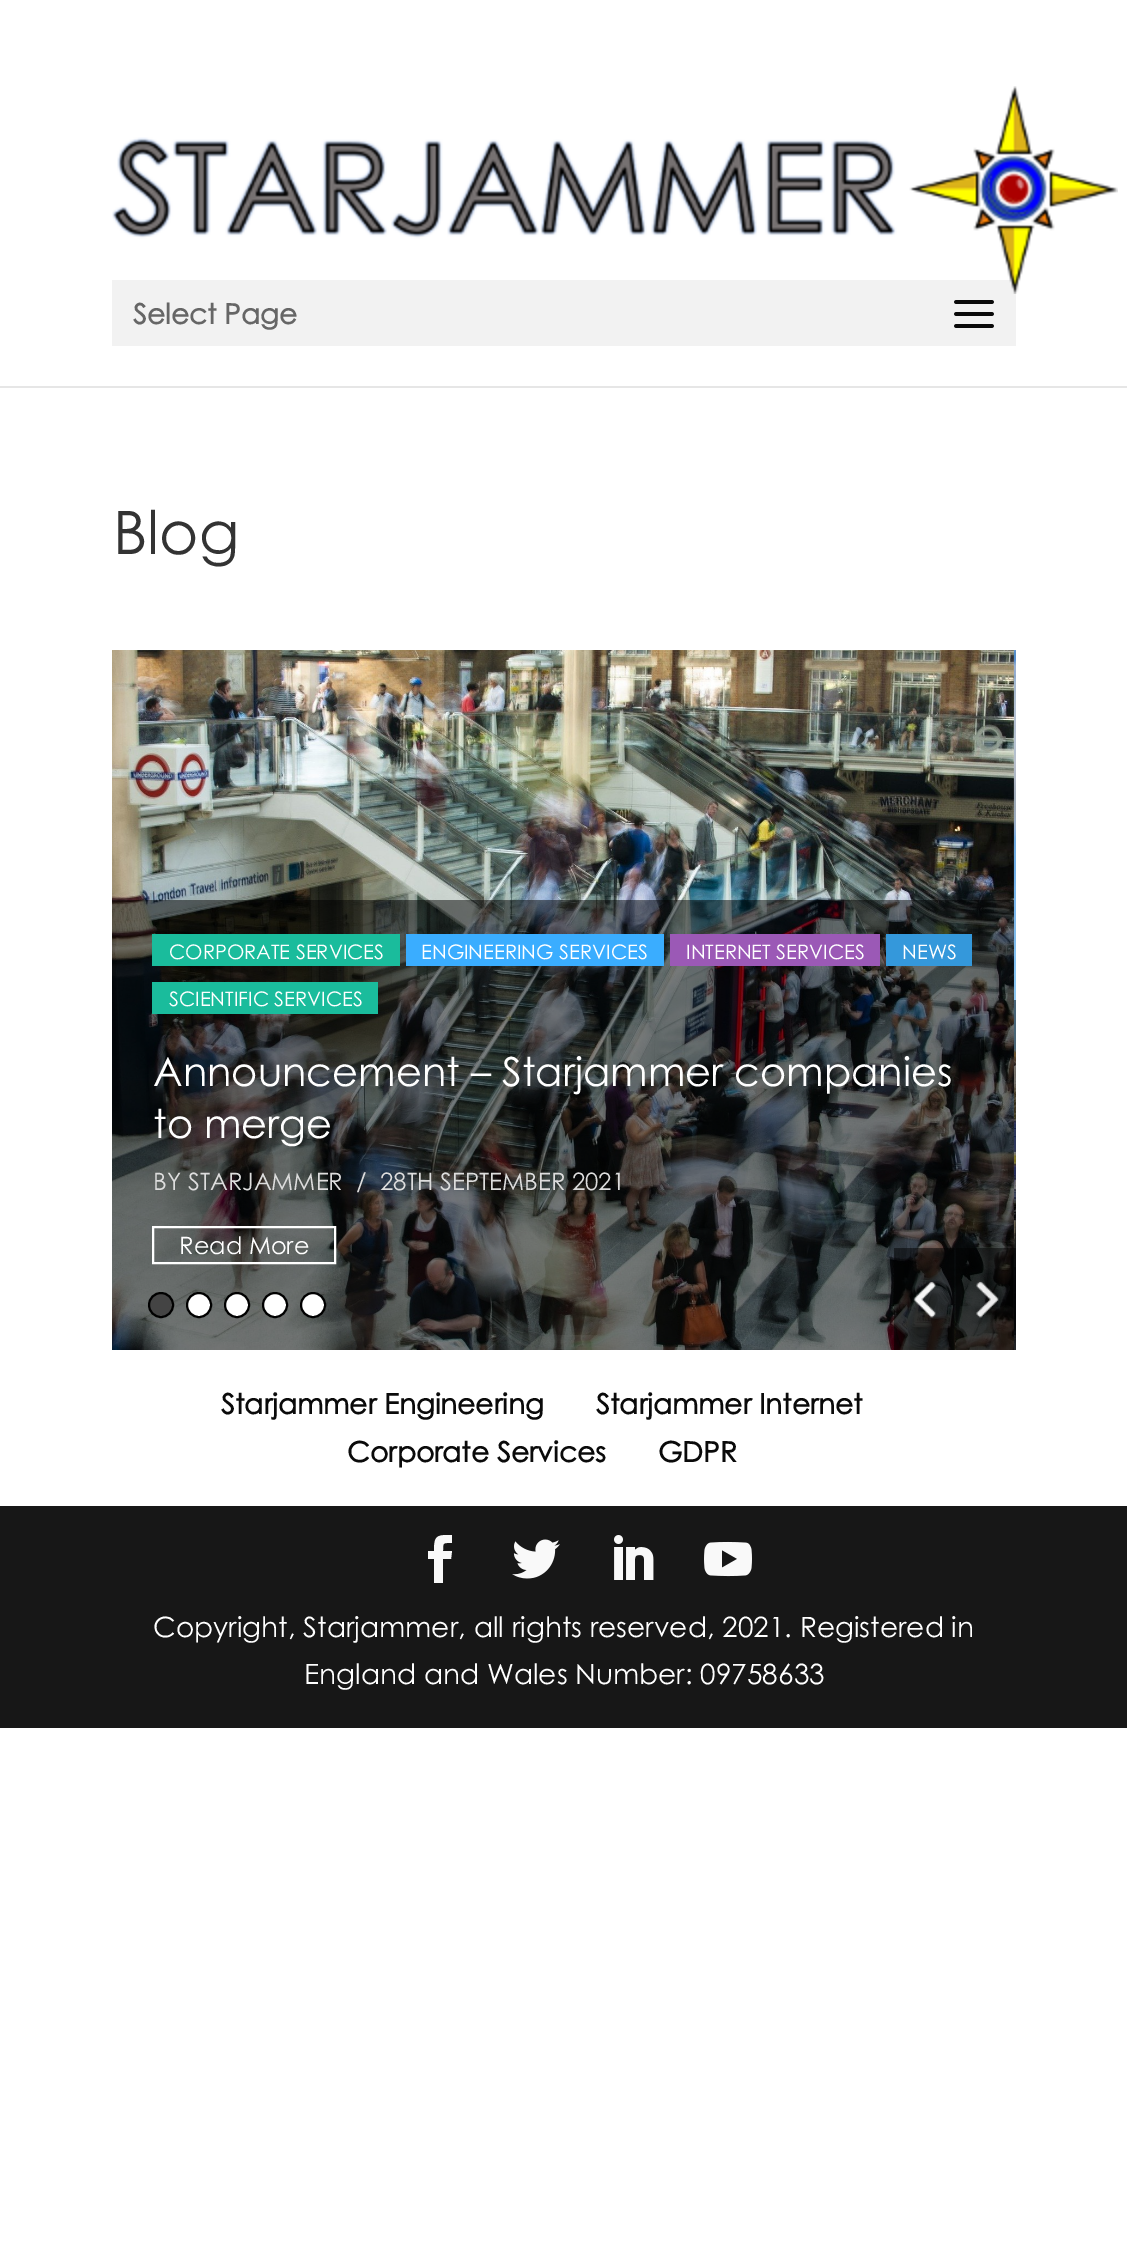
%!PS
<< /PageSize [1127 2264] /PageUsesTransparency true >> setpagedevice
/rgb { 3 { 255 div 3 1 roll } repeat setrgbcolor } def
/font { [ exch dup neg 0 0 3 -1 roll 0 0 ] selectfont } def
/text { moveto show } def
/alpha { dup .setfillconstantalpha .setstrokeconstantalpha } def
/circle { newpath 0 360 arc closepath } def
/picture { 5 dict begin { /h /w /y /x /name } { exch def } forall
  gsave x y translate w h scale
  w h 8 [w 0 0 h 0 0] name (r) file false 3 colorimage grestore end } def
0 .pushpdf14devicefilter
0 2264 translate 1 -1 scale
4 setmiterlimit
255 255 255 rgb
0 0 1127 2264 rectfill
230 230 230 rgb
0 386 1127 2 rectfill
(img_01.rgb) 112 86 1006 208 picture
0.05 alpha
0 0 0 rgb
112 280 904 66 rectfill
1 alpha
(img_02.rgb) 954 300 40 28 picture
(img_03.rgb) 112 650 902 700 picture
0.5 alpha
112 900 902 450 rectfill
1 alpha
26 188 156 rgb
152 934 248 32 rectfill
58 173 255 rgb
406 934 258 32 rectfill
155 89 182 rgb
670 934 210 32 rectfill
52 152 219 rgb
886 934 86 32 rectfill
26 188 156 rgb
152 982 226 32 rectfill
255 255 255 rgb
2 setlinewidth
153 1227 182 36 rectstroke
(img_04.rgb) 1014 650 2 700 picture
0.5 alpha
0 0 0 rgb
1014 1000 2 350 rectfill
1 alpha
68 68 68 rgb
161 1305 12 circle gsave fill grestore
0 0 0 rgb
stroke
255 255 255 rgb
199 1305 12 circle gsave fill grestore
0 0 0 rgb
stroke
255 255 255 rgb
237 1305 12 circle gsave fill grestore
0 0 0 rgb
stroke
255 255 255 rgb
275 1305 12 circle gsave fill grestore
0 0 0 rgb
stroke
255 255 255 rgb
313 1305 12 circle gsave fill grestore
0 0 0 rgb
stroke
(img_05.rgb) 894 1248 60 102 picture
(img_06.rgb) 956 1248 60 102 picture
23 23 23 rgb
0 1506 1127 222 rectfill
249 249 249 rgb
434 1583 moveto 9 0 rlineto 0 -24 rlineto 8 0 rlineto 1 -8 rlineto -9 0 rlineto 0 -9 0 -8 9 -8 rcurveto 0 -8 rlineto -15 0 -18 0 -18 16 rcurveto -6 0 rlineto 0 8 rlineto 6 0 rlineto closepath fill
(img_07.rgb) 512 1539 48 40 picture
(img_08.rgb) 614 1535 40 45 picture
(img_09.rgb) 704 1541 48 36 picture
/CenturyGothic-Bold 28 font
102 102 102 rgb
(Select Page) 133 324 text
/CenturyGothic-Regular 60 font
51 51 51 rgb
(Blog) 113 554 text
/CenturyGothic-Regular 20 font
255 255 255 rgb
(CORPORATE SERVICES) 169 959 text
(ENGINEERING SERVICES) 421 959 text
(INTERNET SERVICES) 686 959 text
(NEWS) 902 959 text
(SCIENTIFIC SERVICES) 169 1006 text
/CenturyGothic-Regular 40 font
(Announcement – Starjammer companies) 153 1086 text
(to merge) 153 1138 text
/CenturyGothic-Regular 24 font
221 221 221 rgb
(BY STARJAMMER) 153 1190 text
(/) 356 1190 text
(28TH SEPTEMBER 2021) 380 1190 text
255 255 255 rgb
(Read More) 179 1254 text
/CenturyGothic-Bold 28 font
10 10 10 rgb
(Starjammer Engineering) 221 1414 text
(Starjammer Internet) 596 1414 text
(Corporate Services) 347 1462 text
(GDPR) 658 1462 text
/CenturyGothic-Regular 28 font
255 255 255 rgb
(Copyright, Starjammer, all rights reserved, 2021. Registered in) 153 1637 text
(England and Wales Number: 09758633) 304 1684 text
.poppdf14devicefilter showpage
